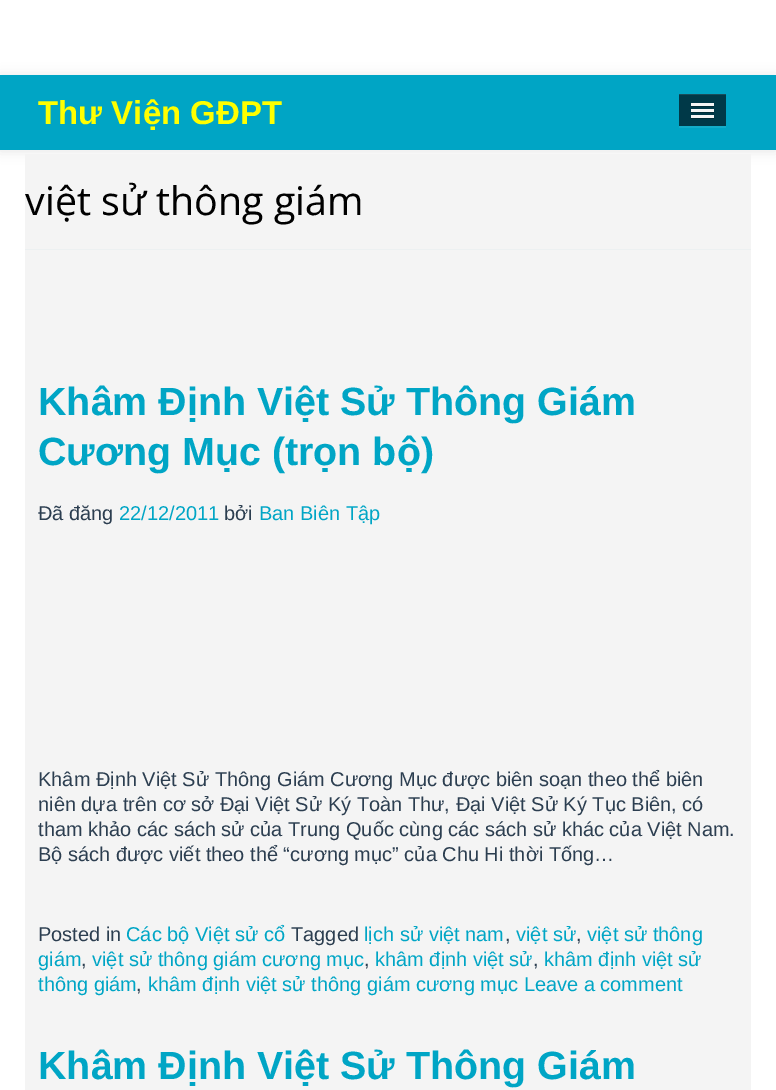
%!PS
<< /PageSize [776 1090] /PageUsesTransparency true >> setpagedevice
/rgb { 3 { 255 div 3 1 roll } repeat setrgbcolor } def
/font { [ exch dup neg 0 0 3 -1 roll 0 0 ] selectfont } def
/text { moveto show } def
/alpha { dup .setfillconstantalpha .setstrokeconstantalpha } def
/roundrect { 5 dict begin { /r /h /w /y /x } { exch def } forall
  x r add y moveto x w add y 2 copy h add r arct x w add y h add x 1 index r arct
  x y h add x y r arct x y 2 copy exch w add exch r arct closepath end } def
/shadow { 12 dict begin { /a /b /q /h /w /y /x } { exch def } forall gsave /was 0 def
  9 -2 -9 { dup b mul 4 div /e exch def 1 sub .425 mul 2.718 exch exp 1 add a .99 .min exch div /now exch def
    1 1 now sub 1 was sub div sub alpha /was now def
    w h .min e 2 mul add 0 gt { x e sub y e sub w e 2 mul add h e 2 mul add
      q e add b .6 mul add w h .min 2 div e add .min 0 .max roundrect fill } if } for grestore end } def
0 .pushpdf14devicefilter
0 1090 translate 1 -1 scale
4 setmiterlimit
255 255 255 rgb
0 0 776 1090 rectfill
0 165 197 rgb
0 75 776 75 rectfill
gsave
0 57 moveto 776 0 rlineto 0 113 rlineto -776 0 rlineto closepath 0 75 moveto 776 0 rlineto 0 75 rlineto -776 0 rlineto closepath eoclip newpath
0 0 0 rgb
0 76 776 75 0 6 0.1 shadow
grestore
19 172 201 rgb
679 126 47 2 rectfill
0 57 72 rgb
679 95 47 31 rectfill
26 77 90 rgb
679 94 47 1 rectfill
0 43 54 rgb
691 104 moveto 0 3 rlineto 23 0 rlineto 0 -3 rlineto 0 1 rlineto -23 0 rlineto closepath fill
245 245 245 rgb
691 103 23 3 rectfill
0 43 54 rgb
691 110 moveto 0 3 rlineto 23 0 rlineto 0 -3 rlineto 0 1 rlineto -23 0 rlineto closepath fill
245 245 245 rgb
691 109 23 3 rectfill
0 43 54 rgb
691 116 moveto 0 3 rlineto 23 0 rlineto 0 -3 rlineto 0 1.5 rlineto -23 0 rlineto closepath fill
245 245 245 rgb
691 115 23 3 rectfill
244 244 244 rgb
25 154 726 936 rectfill
236 240 241 rgb
25 249 726 1 rectfill
/LiberationSans-Bold 33 font
255 255 0 rgb
(Thư Viện GĐPT) 38 124 text
/OpenSans-Regular 39.4 font
0 0 0 rgb
(việt sử thông giám) 25 215 text
/LiberationSans-Bold 39.4 font
0 165 197 rgb
(Khâm Định Việt Sử Thông Giám) 38 415 text
(Cương Mục \(trọn bộ\)) 38 465 text
/LiberationSans-Regular 20 font
44 62 80 rgb
(Đã đăng) 38 520 text
0 165 197 rgb
(22/12/2011) 119 520 text
44 62 80 rgb
(bởi) 224 520 text
0 165 197 rgb
(Ban Biên Tập) 259 520 text
44 62 80 rgb
(Khâm Định Việt Sử Thông Giám Cương Mục được biên soạn theo thể biên) 38 786 text
(niên dựa trên cơ sở Đại Việt Sử Ký Toàn Thư, Đại Việt Sử Ký Tục Biên, có) 38 811 text
(tham khảo các sách sử của Trung Quốc cùng các sách sử khác của Việt Nam.) 38 836 text
(Bộ sách được viết theo thể “cương mục” của Chu Hi thời Tống…) 38 861 text
(Posted in) 38 941 text
0 165 197 rgb
(Các bộ Việt sử cổ) 126 941 text
44 62 80 rgb
(Tagged) 291 941 text
0 165 197 rgb
(lịch sử việt nam) 364 941 text
44 62 80 rgb
(,) 505 941 text
0 165 197 rgb
(việt sử) 516 941 text
44 62 80 rgb
(,) 576 941 text
0 165 197 rgb
(việt sử thông) 587 941 text
(giám) 38 966 text
44 62 80 rgb
(,) 81 966 text
0 165 197 rgb
(việt sử thông giám cương mục) 92 966 text
44 62 80 rgb
(,) 364 966 text
0 165 197 rgb
(khâm định việt sử) 375 966 text
44 62 80 rgb
(,) 533 966 text
0 165 197 rgb
(khâm định việt sử) 544 966 text
(thông giám) 38 991 text
44 62 80 rgb
(,) 136 991 text
0 165 197 rgb
(khâm định việt sử thông giám cương mục Leave a comment) 148 991 text
/LiberationSans-Bold 39.4 font
(Khâm Định Việt Sử Thông Giám) 38 1079 text
.poppdf14devicefilter showpage
